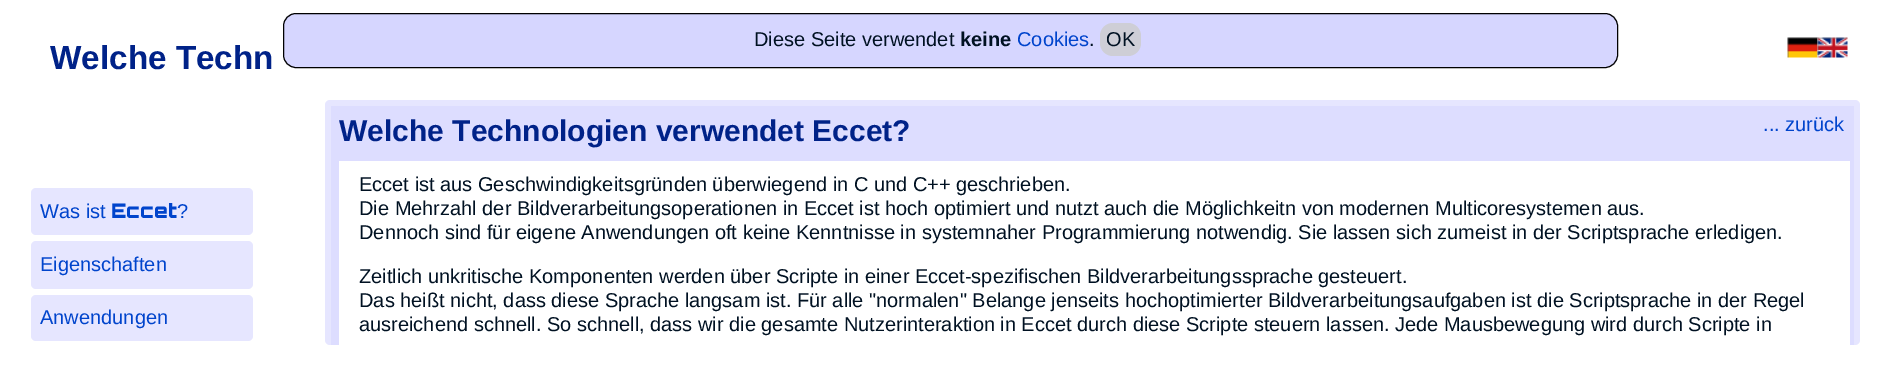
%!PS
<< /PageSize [1884 369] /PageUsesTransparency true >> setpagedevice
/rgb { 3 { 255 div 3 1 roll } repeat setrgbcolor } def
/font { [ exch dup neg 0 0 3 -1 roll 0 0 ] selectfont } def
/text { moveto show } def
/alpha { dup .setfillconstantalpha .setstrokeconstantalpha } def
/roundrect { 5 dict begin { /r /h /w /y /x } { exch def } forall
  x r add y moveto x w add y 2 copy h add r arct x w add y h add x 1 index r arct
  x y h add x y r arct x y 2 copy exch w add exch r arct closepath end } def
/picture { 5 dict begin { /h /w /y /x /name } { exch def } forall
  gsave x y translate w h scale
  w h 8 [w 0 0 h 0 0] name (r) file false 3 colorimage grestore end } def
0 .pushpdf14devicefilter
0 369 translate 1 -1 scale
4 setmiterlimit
255 255 255 rgb
0 0 1884 369 rectfill
0.8 alpha
204 204 255 rgb
283.5 13.5 1334 54 12.5 roundrect fill
1 alpha
0 0 0 rgb
283.5 13.5 1334 54 12.5 roundrect stroke
206 206 214 rgb
1100 23 41 33 13 roundrect fill
(img_01.rgb) 1787 37 31 21 picture
(img_02.rgb) 1817 37 31 21 picture
230 230 255 rgb
31 188 222 47 5 roundrect fill
31 241 222 48 5 roundrect fill
31 295 222 46 5 roundrect fill
325 100 1535 245 5 roundrect fill
221 221 255 rgb
331 106 1523 239 rectfill
255 255 255 rgb
339 161 1511 184 rectfill
/LiberationSans-Bold 33.25 font
0 34 136 rgb
(Welche Techn) 50 69 text
/LiberationSans-Regular 20 font
0 17 34 rgb
(Diese Seite verwendet) 754 46 text
/LiberationSans-Bold 20 font
(keine) 960 46 text
/LiberationSans-Regular 20 font
0 68 204 rgb
(Cookies) 1017 46 text
0 17 34 rgb
(.) 1089 46 text
(OK) 1106 46 text
0 68 204 rgb
(Was ist) 40 218 text
/Orbitron-Black 20 font
(Eccet) 111 218 text
/LiberationSans-Regular 20 font
(?) 177 218 text
(Eigenschaften) 40 271 text
(Anwendungen) 40 324 text
/LiberationSans-Bold 30 font
0 34 136 rgb
(Welche Technologien verwendet Eccet?) 339 141 text
/LiberationSans-Regular 20 font
0 68 204 rgb
(... zurück) 1763 131 text
0 17 34 rgb
(Eccet ist aus Geschwindigkeitsgründen überwiegend in C und C++ geschrieben.) 359 191 text
(Die Mehrzahl der Bildverarbeitungsoperationen in Eccet ist hoch optimiert und nutzt auch die Möglichkeitn von modernen Multicoresystemen aus.) 359 215 text
(Dennoch sind für eigene Anwendungen oft keine Kenntnisse in systemnaher Programmierung notwendig. Sie lassen sich zumeist in der Scriptsprache erledigen.) 359 239 text
(Zeitlich unkritische Komponenten werden über Scripte in einer Eccet-spezifischen Bildverarbeitungssprache gesteuert.) 359 283 text
(Das heißt nicht, dass diese Sprache langsam ist. Für alle "normalen" Belange jenseits hochoptimierter Bildverarbeitungsaufgaben ist die Scriptsprache in der Regel) 359 307 text
(ausreichend schnell. So schnell, dass wir die gesamte Nutzerinteraktion in Eccet durch diese Scripte steuern lassen. Jede Mausbewegung wird durch Scripte in) 359 331 text
.poppdf14devicefilter showpage
